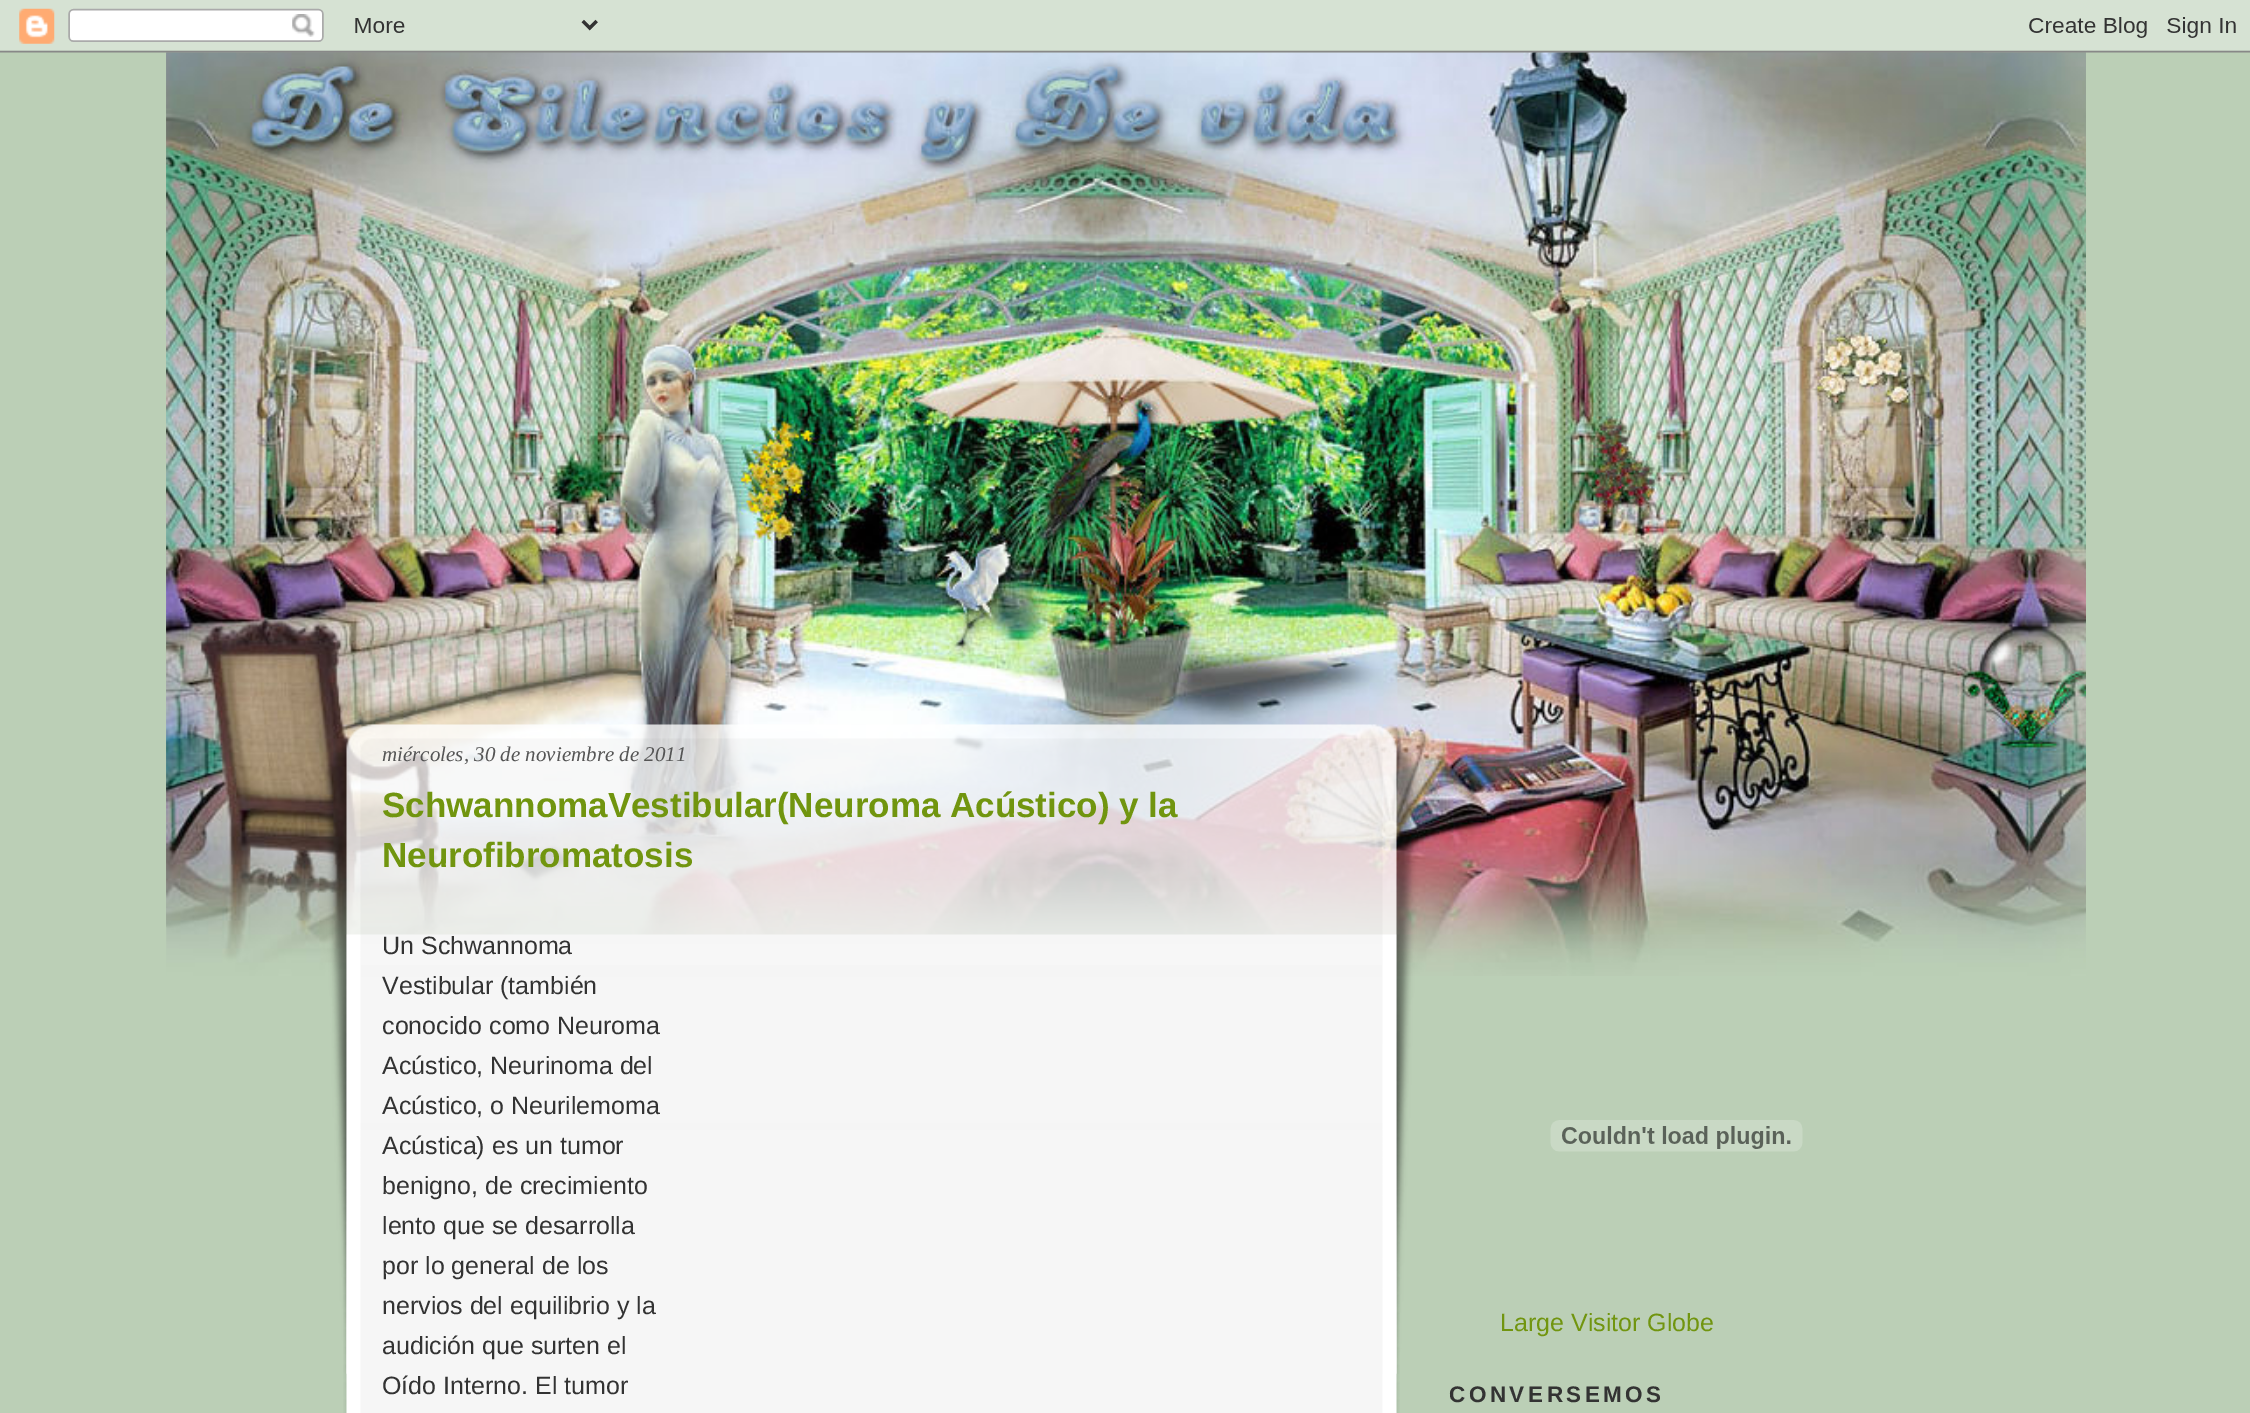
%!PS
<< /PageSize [2250 1413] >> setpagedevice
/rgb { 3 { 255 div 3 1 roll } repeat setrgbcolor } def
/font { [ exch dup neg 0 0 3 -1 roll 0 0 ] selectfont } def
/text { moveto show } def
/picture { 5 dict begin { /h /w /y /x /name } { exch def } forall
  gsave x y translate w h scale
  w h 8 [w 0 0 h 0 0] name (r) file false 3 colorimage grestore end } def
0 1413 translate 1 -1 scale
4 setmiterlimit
187 207 182 rgb
0 0 2250 1413 rectfill
(img_02.rgb) 166 52 1920 924 picture
(img_03.rgb) 166 52 1920 875 picture
(img_04.rgb) 267 52 1716 897 picture
(img_01.rgb) 0 0 2250 53 picture
(img_05.rgb) 1142 626 7 7 picture
(img_06.rgb) 343 934 1057 479 picture
(img_07.rgb) 324 724 1095 650 picture
(img_08.rgb) 1550 1120 253 32 picture
/LiberationSerif-Italic 21 font
85 85 85 rgb
(miércoles, 30 de noviembre de 2011) 382 761 text
/LiberationSans-Bold 35 font
113 149 15 rgb
(SchwannomaVestibular\(Neuroma Acústico\) y la) 382 817 text
(Neurofibromatosis) 382 867 text
/LiberationSans-Regular 25 font
51 51 51 rgb
(Un Schwannoma) 382 954 text
(Vestibular \(también) 382 994 text
(conocido como Neuroma) 382 1034 text
(Acústico, Neurinoma del) 382 1074 text
(Acústico, o Neurilemoma) 382 1114 text
(Acústica\) es un tumor) 382 1154 text
(benigno, de crecimiento) 382 1194 text
(lento que se desarrolla) 382 1234 text
(por lo general de los) 382 1274 text
(nervios del equilibrio y la) 382 1314 text
(audición que surten el) 382 1354 text
(Oído Interno. El tumor) 382 1394 text
113 149 15 rgb
(Large Visitor Globe) 1500 1331 text
/LiberationSans-Bold 22.5 font
51 51 51 rgb
1449 1402 moveto 3.5 0 (CONVERSEMOS) ashow
showpage
